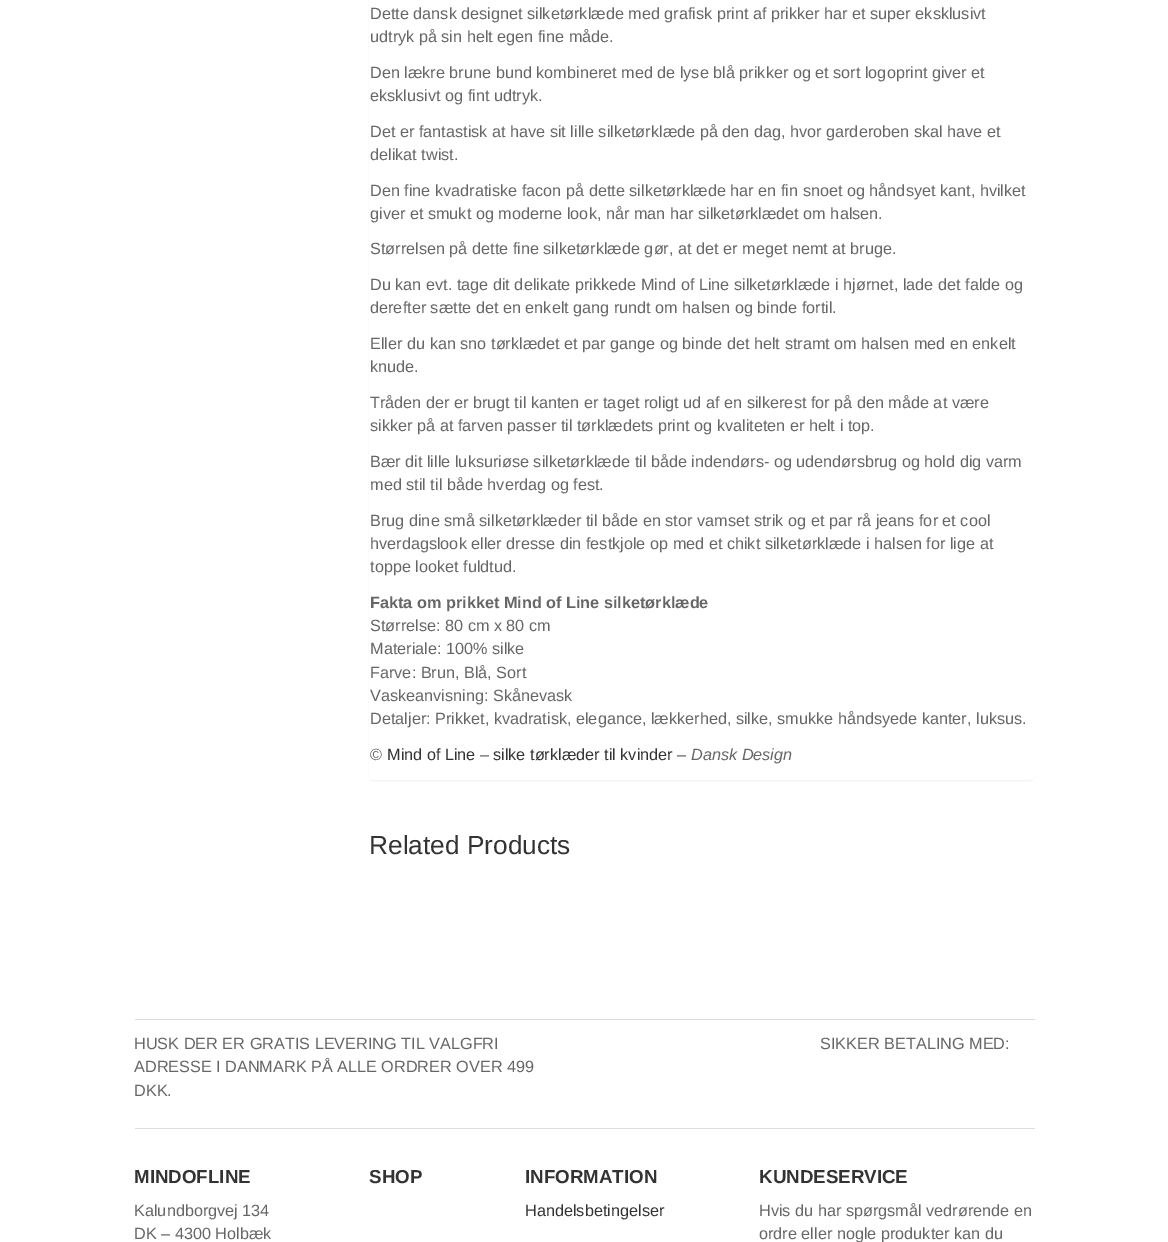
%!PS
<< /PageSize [1168 1242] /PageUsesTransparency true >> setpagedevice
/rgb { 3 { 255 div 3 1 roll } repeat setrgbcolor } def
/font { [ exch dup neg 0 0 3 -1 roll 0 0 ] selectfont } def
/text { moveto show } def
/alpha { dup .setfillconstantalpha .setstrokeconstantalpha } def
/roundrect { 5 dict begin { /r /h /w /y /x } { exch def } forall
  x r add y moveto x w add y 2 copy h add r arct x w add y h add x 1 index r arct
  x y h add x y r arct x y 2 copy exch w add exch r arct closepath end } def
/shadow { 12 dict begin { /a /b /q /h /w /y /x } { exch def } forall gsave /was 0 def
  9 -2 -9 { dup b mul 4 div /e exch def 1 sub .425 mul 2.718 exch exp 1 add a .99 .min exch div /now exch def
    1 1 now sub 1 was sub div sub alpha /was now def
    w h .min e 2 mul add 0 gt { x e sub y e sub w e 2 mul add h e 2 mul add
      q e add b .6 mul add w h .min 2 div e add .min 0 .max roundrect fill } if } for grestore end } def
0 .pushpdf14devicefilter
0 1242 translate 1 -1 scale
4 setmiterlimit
255 255 255 rgb
0 0 1168 1242 rectfill
0 0 0 rgb
369 -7 666 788 5 0.5 0.05 shadow
255 255 255 rgb
369 -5 666 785 5 roundrect fill
222 222 222 rgb
135 1019 900 1 rectfill
135 1128 900 1 rectfill
/LiberationSans-Regular 16.25 font
102 102 102 rgb
(Dette dansk designet silketørklæde med grafisk print af prikker har et super eksklusivt) 370 19 text
(udtryk på sin helt egen fine måde.) 370 42 text
(Den lækre brune bund kombineret med de lyse blå prikker og et sort logoprint giver et) 370 78 text
(eksklusivt og fint udtryk.) 370 101 text
(Det er fantastisk at have sit lille silketørklæde på den dag, hvor garderoben skal have et) 370 137 text
(delikat twist.) 370 160 text
(Den fine kvadratiske facon på dette silketørklæde har en fin snoet og håndsyet kant, hvilket) 370 196 text
(giver et smukt og moderne look, når man har silketørklædet om halsen.) 370 219 text
(Størrelsen på dette fine silketørklæde gør, at det er meget nemt at bruge.) 370 254 text
(Du kan evt. tage dit delikate prikkede Mind of Line silketørklæde i hjørnet, lade det falde og) 370 290 text
(derefter sætte det en enkelt gang rundt om halsen og binde fortil.) 370 313 text
(Eller du kan sno tørklædet et par gange og binde det helt stramt om halsen med en enkelt) 370 349 text
(knude.) 370 372 text
(Tråden der er brugt til kanten er taget roligt ud af en silkerest for på den måde at være) 370 408 text
(sikker på at farven passer til tørklædets print og kvaliteten er helt i top.) 370 431 text
(Bær dit lille luksuriøse silketørklæde til både indendørs- og udendørsbrug og hold dig varm) 370 467 text
(med stil til både hverdag og fest.) 370 490 text
(Brug dine små silketørklæder til både en stor vamset strik og et par rå jeans for et cool) 370 526 text
(hverdagslook eller dresse din festkjole op med et chikt silketørklæde i halsen for lige at) 370 549 text
(toppe looket fuldtud.) 370 572 text
/LiberationSans-Bold 16.25 font
(Fakta om prikket Mind of Line silketørklæde) 370 608 text
/LiberationSans-Regular 16.25 font
(Størrelse: 80 cm x 80 cm) 370 631 text
(Materiale: 100% silke) 370 654 text
(Farve: Brun, Blå, Sort) 370 678 text
(Vaskeanvisning: Skånevask) 370 701 text
(Detaljer: Prikket, kvadratisk, elegance, lækkerhed, silke, smukke håndsyede kanter, luksus.) 370 724 text
(©) 370 760 text
51 51 51 rgb
(Mind of Line) 387 760 text
102 102 102 rgb
(–) 480 760 text
51 51 51 rgb
(silke tørklæder til kvinder) 493 760 text
102 102 102 rgb
(–) 677 760 text
/LiberationSans-Italic 16.25 font
(Dansk Design) 691 760 text
/LiberationSans-Regular 26.25 font
51 51 51 rgb
(Related Products) 369 854 text
/LiberationSans-Regular 16.25 font
102 102 102 rgb
(HUSK DER ER GRATIS LEVERING TIL VALGFRI) 134 1049 text
(ADRESSE I DANMARK PÅ ALLE ORDRER OVER 499) 134 1072 text
(DKK.) 134 1096 text
(SIKKER BETALING MED:) 820 1049 text
/LiberationSans-Bold 18.75 font
51 51 51 rgb
(MINDOFLINE) 134 1183 text
/LiberationSans-Regular 16.25 font
102 102 102 rgb
(Kalundborgvej 134) 134 1216 text
(DK – 4300 Holbæk) 134 1239 text
/LiberationSans-Bold 18.75 font
51 51 51 rgb
(SHOP) 369 1183 text
(INFORMATION) 525 1183 text
/LiberationSans-Regular 16.25 font
(Handelsbetingelser) 525 1216 text
/LiberationSans-Bold 18.75 font
(KUNDESERVICE) 759 1183 text
/LiberationSans-Regular 16.25 font
102 102 102 rgb
(Hvis du har spørgsmål vedrørende en) 759 1216 text
(ordre eller nogle produkter kan du) 759 1239 text
.poppdf14devicefilter showpage
